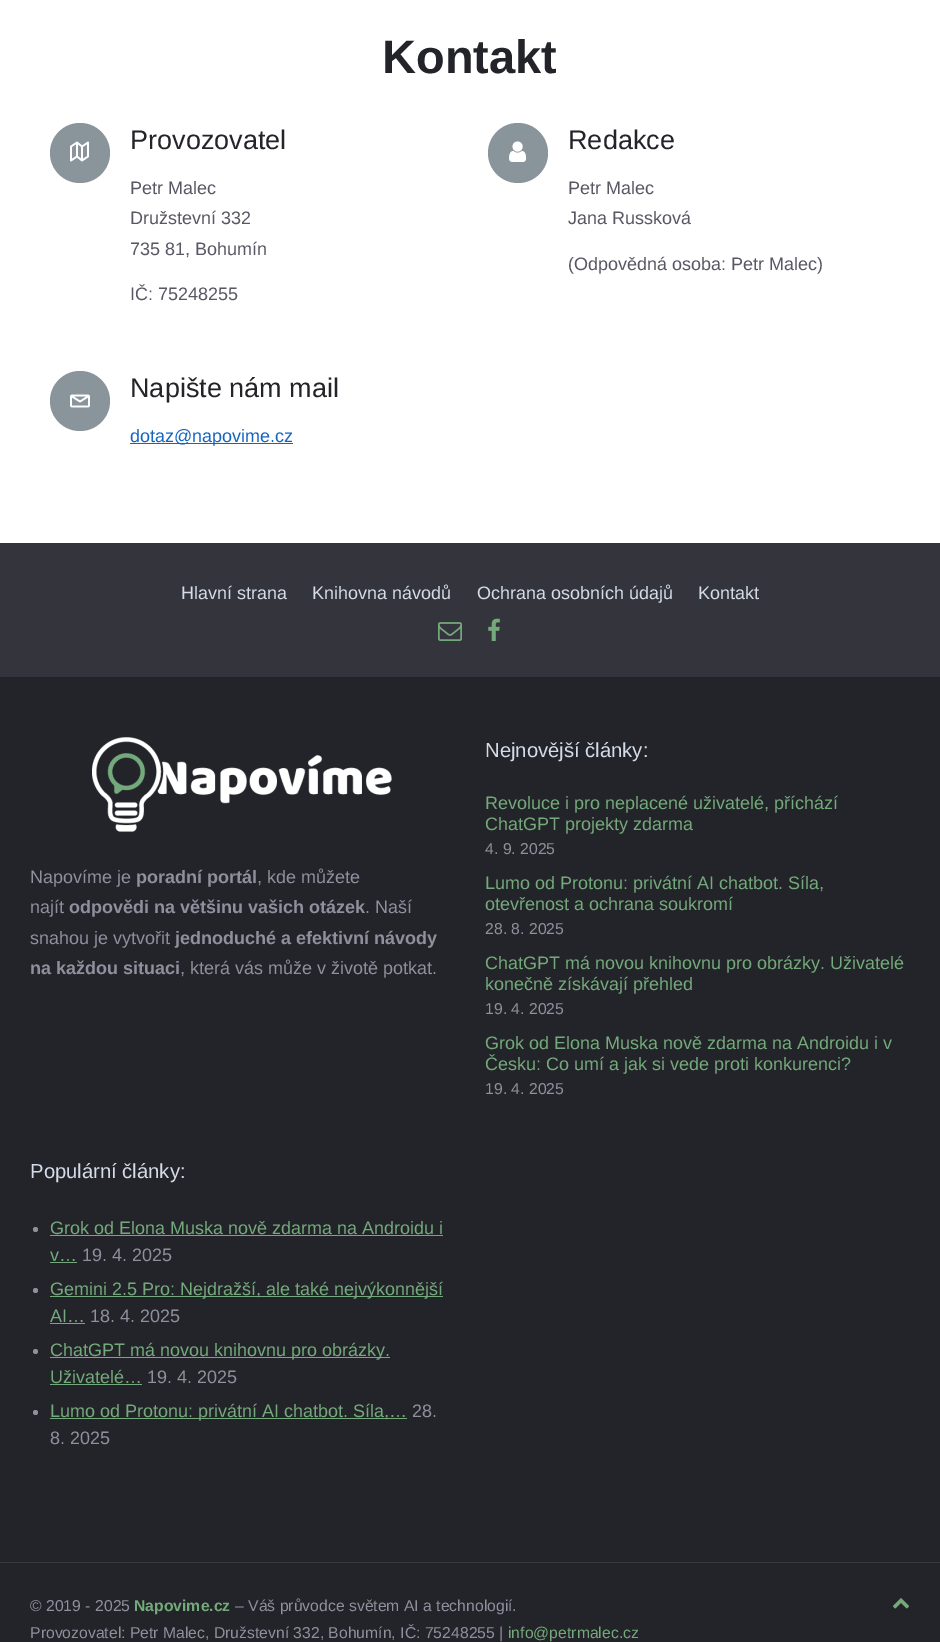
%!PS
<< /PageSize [940 1642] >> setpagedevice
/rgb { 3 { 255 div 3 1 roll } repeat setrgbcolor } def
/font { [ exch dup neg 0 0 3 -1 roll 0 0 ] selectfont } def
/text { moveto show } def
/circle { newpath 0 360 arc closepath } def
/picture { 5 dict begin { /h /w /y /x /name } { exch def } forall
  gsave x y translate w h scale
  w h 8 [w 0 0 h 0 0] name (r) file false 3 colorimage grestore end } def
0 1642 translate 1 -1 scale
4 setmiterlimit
255 255 255 rgb
0 0 940 1642 rectfill
138 148 155 rgb
80 153 30 circle fill
(img_01.rgb) 70 141 19 21 picture
518 153 30 circle fill
(img_02.rgb) 509 141 18 21 picture
80 401 30 circle fill
(img_03.rgb) 70 394 20 14 picture
21 101 192 rgb
130 443 163 1 rectfill
35 36 41 rgb
0 677 940 965 rectfill
52 53 60 rgb
0 543 940 134 rectfill
(img_04.rgb) 438 622 24 19 picture
(img_05.rgb) 488 618 12 23 picture
(img_06.rgb) 92 737 300 95 picture
142 144 157 rgb
35.5 1229.5 2.5 circle fill
116 170 123 rgb
50 1235 393 1 rectfill
50 1262 27 1 rectfill
142 144 157 rgb
35.5 1290.5 2.5 circle fill
116 170 123 rgb
50 1296 393 1 rectfill
50 1323 35 1 rectfill
142 144 157 rgb
35.5 1351.5 2.5 circle fill
116 170 123 rgb
50 1357 340 1 rectfill
50 1384 92 1 rectfill
142 144 157 rgb
35.5 1412.5 2.5 circle fill
116 170 123 rgb
50 1418 357 1 rectfill
57 58 62 rgb
0 1562 940 1 rectfill
(img_07.rgb) 893 1598 16 11 picture
/LiberationSans-Bold 47 font
35 36 41 rgb
(Kontakt) 382 73 text
/LiberationSans-Regular 27 font
(Provozovatel) 130 149 text
/LiberationSans-Regular 18 font
87 88 99 rgb
(Petr Malec) 130 194 text
(Družstevní 332) 130 224 text
(735 81, Bohumín) 130 255 text
(IČ: 75248255) 130 300 text
/LiberationSans-Regular 27 font
35 36 41 rgb
(Redakce) 568 149 text
/LiberationSans-Regular 18 font
87 88 99 rgb
(Petr Malec) 568 194 text
(Jana Russková) 568 224 text
(\(Odpovědná osoba: Petr Malec\)) 568 270 text
/LiberationSans-Regular 27 font
35 36 41 rgb
(Napište nám mail) 130 397 text
/LiberationSans-Regular 18 font
21 101 192 rgb
(dotaz@napovime.cz) 130 442 text
212 220 232 rgb
(Hlavní strana) 181 599 text
(Knihovna návodů) 312 599 text
(Ochrana osobních údajů) 477 599 text
(Kontakt) 698 599 text
142 144 157 rgb
(Napovíme je) 30 883 text
/LiberationSans-Bold 18 font
(poradní portál) 136 883 text
/LiberationSans-Regular 18 font
(, kde můžete) 257 883 text
(najít) 30 913 text
/LiberationSans-Bold 18 font
(odpovědi na většinu vašich otázek) 69 913 text
/LiberationSans-Regular 18 font
(. Naší) 365 913 text
(snahou je vytvořit) 30 944 text
/LiberationSans-Bold 18 font
(jednoduché a efektivní návody) 175 944 text
(na každou situaci) 30 974 text
/LiberationSans-Regular 18 font
(, která vás může v životě potkat.) 180 974 text
/LiberationSans-Regular 20.25 font
212 220 232 rgb
(Nejnovější články:) 485 757 text
/LiberationSans-Regular 18 font
116 170 123 rgb
(Revoluce i pro neplacené uživatelé, příchází) 485 809 text
(ChatGPT projekty zdarma) 485 830 text
/LiberationSans-Regular 15.75 font
142 144 157 rgb
(4. 9. 2025) 485 854 text
/LiberationSans-Regular 18 font
116 170 123 rgb
(Lumo od Protonu: privátní AI chatbot. Síla,) 485 889 text
(otevřenost a ochrana soukromí) 485 910 text
/LiberationSans-Regular 15.75 font
142 144 157 rgb
(28. 8. 2025) 485 934 text
/LiberationSans-Regular 18 font
116 170 123 rgb
(ChatGPT má novou knihovnu pro obrázky. Uživatelé) 485 969 text
(konečně získávají přehled) 485 990 text
/LiberationSans-Regular 15.75 font
142 144 157 rgb
(19. 4. 2025) 485 1014 text
/LiberationSans-Regular 18 font
116 170 123 rgb
(Grok od Elona Muska nově zdarma na Androidu i v) 485 1049 text
(Česku: Co umí a jak si vede proti konkurenci?) 485 1070 text
/LiberationSans-Regular 15.75 font
142 144 157 rgb
(19. 4. 2025) 485 1094 text
/LiberationSans-Regular 20.25 font
212 220 232 rgb
(Populární články:) 30 1178 text
/LiberationSans-Regular 18 font
116 170 123 rgb
(Grok od Elona Muska nově zdarma na Androidu i) 50 1234 text
(v…) 50 1261 text
142 144 157 rgb
(19. 4. 2025) 82 1261 text
116 170 123 rgb
(Gemini 2.5 Pro: Nejdražší, ale také nejvýkonnější) 50 1295 text
(AI…) 50 1322 text
142 144 157 rgb
(18. 4. 2025) 90 1322 text
116 170 123 rgb
(ChatGPT má novou knihovnu pro obrázky.) 50 1356 text
(Uživatelé…) 50 1383 text
142 144 157 rgb
(19. 4. 2025) 147 1383 text
116 170 123 rgb
(Lumo od Protonu: privátní AI chatbot. Síla,…) 50 1417 text
142 144 157 rgb
(28.) 412 1417 text
(8. 2025) 50 1444 text
/LiberationSans-Regular 15.75 font
(© 2019 - 2025) 30 1611 text
/LiberationSans-Bold 15.75 font
116 170 123 rgb
(Napovime.cz) 134 1611 text
/LiberationSans-Regular 15.75 font
142 144 157 rgb
(– Váš průvodce světem AI a technologií.) 235 1611 text
(Provozovatel: Petr Malec, Družstevní 332, Bohumín, IČ: 75248255 |) 30 1638 text
116 170 123 rgb
(info@petrmalec.cz) 508 1638 text
showpage
